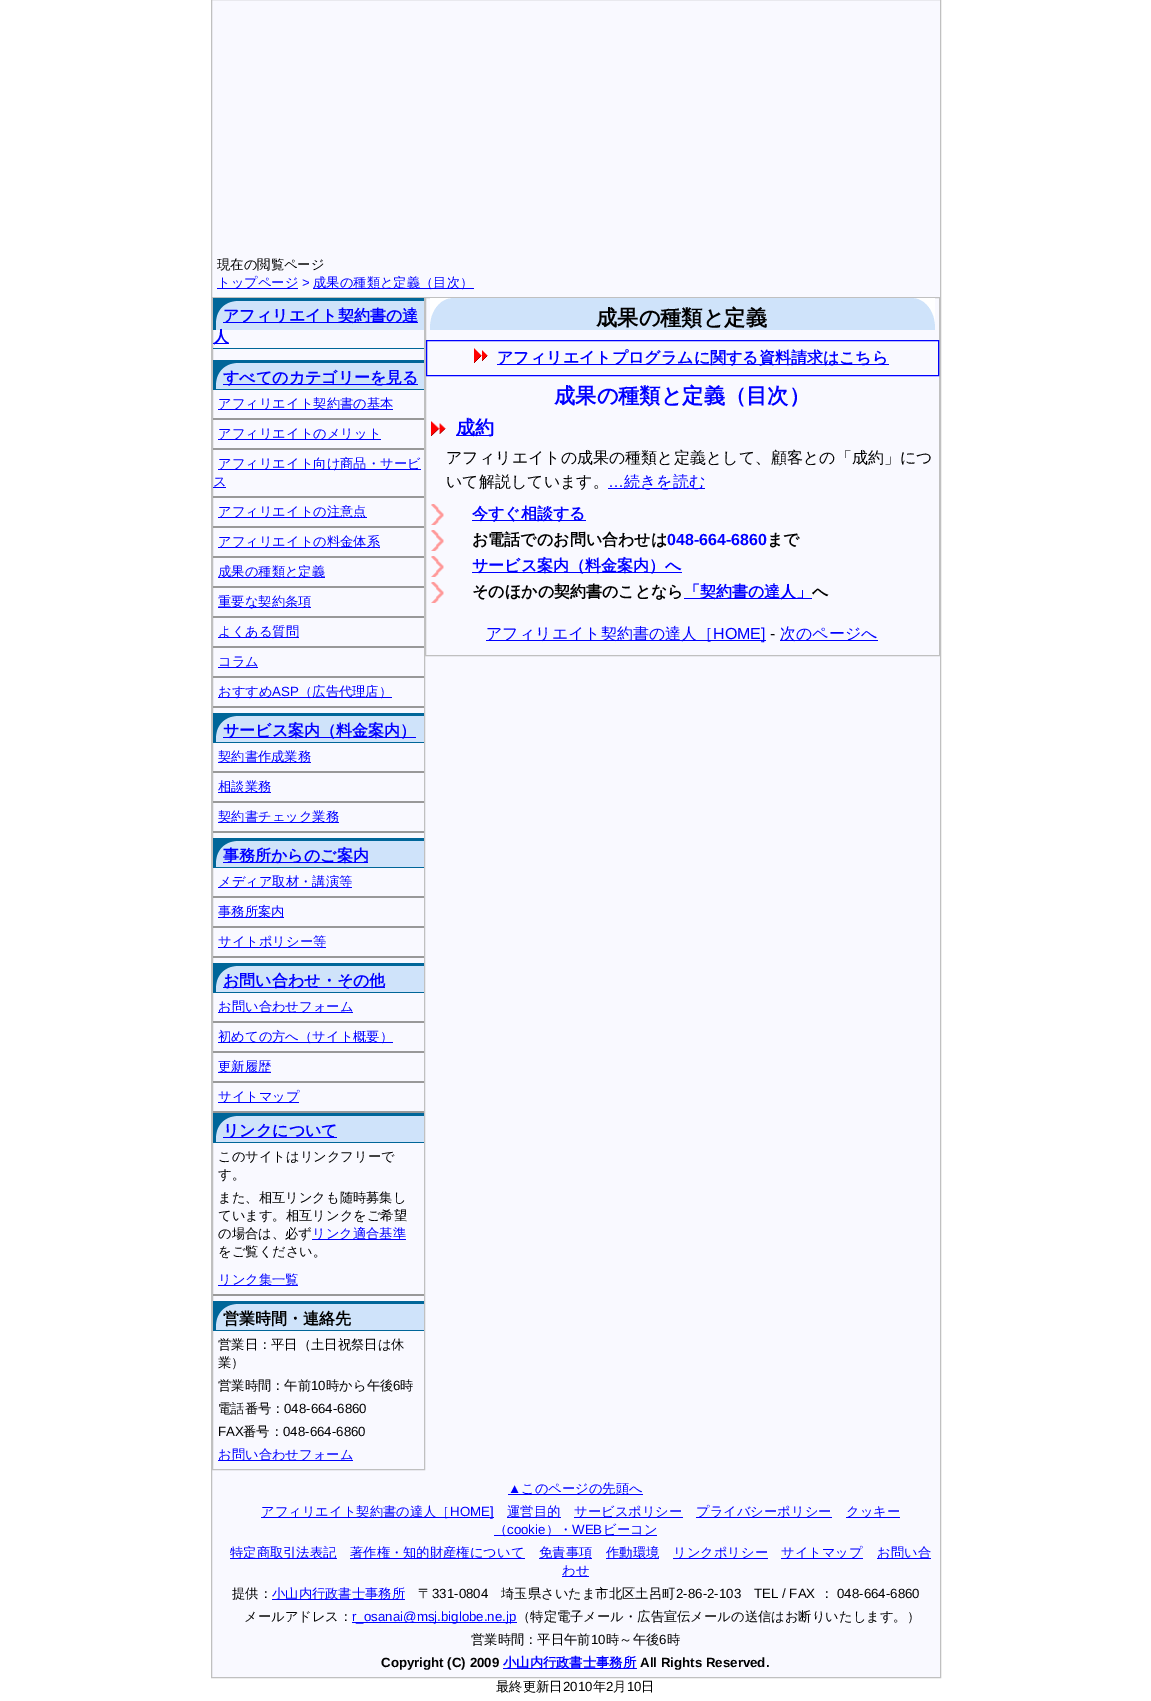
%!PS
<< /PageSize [1151 1701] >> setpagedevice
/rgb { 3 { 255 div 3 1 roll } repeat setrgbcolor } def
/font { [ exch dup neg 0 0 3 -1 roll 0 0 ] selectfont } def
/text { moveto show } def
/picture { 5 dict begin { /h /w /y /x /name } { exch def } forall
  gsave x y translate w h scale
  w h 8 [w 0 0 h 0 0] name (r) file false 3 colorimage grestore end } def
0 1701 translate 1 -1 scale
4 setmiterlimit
255 255 255 rgb
0 0 1151 1701 rectfill
249 249 255 rgb
211.5 -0.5 moveto 729 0 rlineto 0 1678 rlineto -729 0 rlineto closepath gsave fill grestore
192 192 192 rgb
stroke
0 0 255 rgb
217 288 81 1 rectfill
313 288 161 1 rectfill
192 192 192 rgb
212.5 297.5 212 1172 rectstroke
(img_01.rgb) 213 298 211 32 picture
0 102 153 rgb
213 348 211 1 rectfill
0 0 255 rgb
223 322 195 1 rectfill
213 343 16 1 rectfill
(img_02.rgb) 213 360 211 29 picture
0 102 153 rgb
213 389 211 1 rectfill
0 0 255 rgb
223 384 195 1 rectfill
153 153 153 rgb
213 418 211 2 rectfill
0 0 255 rgb
218 409 175 1 rectfill
153 153 153 rgb
213 448 211 2 rectfill
0 0 255 rgb
218 439 163 1 rectfill
153 153 153 rgb
213 496 211 2 rectfill
0 0 255 rgb
218 469 203 1 rectfill
213 487 13 1 rectfill
153 153 153 rgb
213 526 211 2 rectfill
0 0 255 rgb
218 517 149 1 rectfill
153 153 153 rgb
213 556 211 2 rectfill
0 0 255 rgb
218 547 162 1 rectfill
153 153 153 rgb
213 586 211 2 rectfill
0 0 255 rgb
218 577 107 1 rectfill
153 153 153 rgb
213 616 211 2 rectfill
0 0 255 rgb
218 607 93 1 rectfill
153 153 153 rgb
213 646 211 2 rectfill
0 0 255 rgb
218 637 81 1 rectfill
153 153 153 rgb
213 676 211 2 rectfill
0 0 255 rgb
218 667 40 1 rectfill
153 153 153 rgb
213 706 211 2 rectfill
0 0 255 rgb
218 697 174 1 rectfill
(img_02.rgb) 213 713 211 29 picture
0 102 153 rgb
213 742 211 1 rectfill
0 0 255 rgb
223 737 193 1 rectfill
153 153 153 rgb
213 771 211 2 rectfill
0 0 255 rgb
218 762 93 1 rectfill
153 153 153 rgb
213 801 211 2 rectfill
0 0 255 rgb
218 792 53 1 rectfill
153 153 153 rgb
213 831 211 2 rectfill
0 0 255 rgb
218 822 121 1 rectfill
(img_02.rgb) 213 838 211 29 picture
0 102 153 rgb
213 867 211 1 rectfill
0 0 255 rgb
223 862 145 1 rectfill
153 153 153 rgb
213 896 211 2 rectfill
0 0 255 rgb
218 887 134 1 rectfill
153 153 153 rgb
213 926 211 2 rectfill
0 0 255 rgb
218 917 66 1 rectfill
153 153 153 rgb
213 956 211 2 rectfill
0 0 255 rgb
218 947 108 1 rectfill
(img_02.rgb) 213 963 211 29 picture
0 102 153 rgb
213 992 211 1 rectfill
0 0 255 rgb
223 987 162 1 rectfill
153 153 153 rgb
213 1021 211 2 rectfill
0 0 255 rgb
218 1012 135 1 rectfill
153 153 153 rgb
213 1051 211 2 rectfill
0 0 255 rgb
218 1042 175 1 rectfill
153 153 153 rgb
213 1081 211 2 rectfill
0 0 255 rgb
218 1072 53 1 rectfill
153 153 153 rgb
213 1111 211 2 rectfill
0 0 255 rgb
218 1102 81 1 rectfill
(img_02.rgb) 213 1113 211 29 picture
0 102 153 rgb
213 1142 211 1 rectfill
0 0 255 rgb
223 1137 114 1 rectfill
312 1239 94 1 rectfill
153 153 153 rgb
213 1294 211 2 rectfill
0 0 255 rgb
218 1285 80 1 rectfill
(img_02.rgb) 213 1301 211 29 picture
0 102 153 rgb
213 1330 211 1 rectfill
0 0 255 rgb
218 1460 135 1 rectfill
192 192 192 rgb
425.5 297.5 514 358 rectstroke
(img_03.rgb) 430 298 505 32 picture
0 0 255 rgb
426.5 340.5 512 35 rectstroke
(img_04.rgb) 474 348 14 15 picture
497 364 392 1 rectfill
(img_05.rgb) 431 421 15 15 picture
456 435 37 1 rectfill
608 488 97 1 rectfill
(img_06.rgb) 431 504 13 21 picture
472 520 114 1 rectfill
(img_06.rgb) 431 530 13 21 picture
(img_06.rgb) 431 556 13 21 picture
472 572 210 1 rectfill
(img_06.rgb) 431 582 13 21 picture
684 598 128 1 rectfill
486 640 280 1 rectfill
780 640 98 1 rectfill
508 1494 135 1 rectfill
261 1517 233 1 rectfill
507 1517 54 1 rectfill
574 1517 109 1 rectfill
696 1517 136 1 rectfill
846 1517 54 1 rectfill
494 1535 163 1 rectfill
230 1558 107 1 rectfill
350 1558 175 1 rectfill
539 1558 53 1 rectfill
606 1558 53 1 rectfill
673 1558 95 1 rectfill
781 1558 82 1 rectfill
877 1558 54 1 rectfill
562 1576 27 1 rectfill
272 1599 133 1 rectfill
352 1622 165 1 rectfill
503 1668 134 1 rectfill
/WenQuanYiZenHei-Medium 13.3 font
0 0 0 rgb
(現在の閲覧ページ) 217 269 text
0 0 255 rgb
(トップページ) 217 287 text
/LiberationSans-Regular 13.3 font
(>) 302 287 text
/WenQuanYiZenHei-Medium 13.3 font
(成果の種類と定義（目次）) 313 287 text
/WenQuanYiZenHei-Bold 16 font
(アフィリエイト契約書の達) 223 321 text
(人) 213 342 text
(すべてのカテゴリーを見る) 223 383 text
/WenQuanYiZenHei-Medium 13.3 font
(アフィリエイト契約書の基本) 218 408 text
(アフィリエイトのメリット) 218 438 text
(アフィリエイト向け商品・サービ) 218 468 text
(ス) 213 486 text
(アフィリエイトの注意点) 218 516 text
(アフィリエイトの料金体系) 218 546 text
(成果の種類と定義) 218 576 text
(重要な契約条項) 218 606 text
(よくある質問) 218 636 text
(コラム) 218 666 text
(おすすめ) 218 696 text
/LiberationSans-Regular 13.3 font
(ASP) 272 696 text
/WenQuanYiZenHei-Medium 13.3 font
(（広告代理店）) 299 696 text
/WenQuanYiZenHei-Bold 16 font
(サービス案内（料金案内）) 223 736 text
/WenQuanYiZenHei-Medium 13.3 font
(契約書作成業務) 218 761 text
(相談業務) 218 791 text
(契約書チェック業務) 218 821 text
/WenQuanYiZenHei-Bold 16 font
(事務所からのご案内) 223 861 text
/WenQuanYiZenHei-Medium 13.3 font
(メディア取材・講演等) 218 886 text
(事務所案内) 218 916 text
(サイトポリシー等) 218 946 text
/WenQuanYiZenHei-Bold 16 font
(お問い合わせ・その他) 223 986 text
/WenQuanYiZenHei-Medium 13.3 font
(お問い合わせフォーム) 218 1011 text
(初めての方へ（サイト概要）) 218 1041 text
(更新履歴) 218 1071 text
(サイトマップ) 218 1101 text
/WenQuanYiZenHei-Bold 16 font
(リンクについて) 223 1136 text
/WenQuanYiZenHei-Medium 13.3 font
0 0 0 rgb
(このサイトはリンクフリーで) 218 1161 text
(す。) 218 1179 text
(また、相互リンクも随時募集し) 218 1202 text
(ています。相互リンクをご希望) 218 1220 text
(の場合は、必ず) 218 1238 text
0 0 255 rgb
(リンク適合基準) 312 1238 text
0 0 0 rgb
(をご覧ください。) 218 1256 text
0 0 255 rgb
(リンク集一覧) 218 1284 text
/WenQuanYiZenHei-Bold 16 font
0 0 0 rgb
(営業時間・連絡先) 223 1324 text
/WenQuanYiZenHei-Medium 13.3 font
(営業日：平日（土日祝祭日は休) 218 1349 text
(業）) 218 1367 text
(営業時間：午前) 218 1390 text
/LiberationSans-Regular 13.3 font
(10) 311 1390 text
/WenQuanYiZenHei-Medium 13.3 font
(時から午後) 326 1390 text
/LiberationSans-Regular 13.3 font
(6) 393 1390 text
/WenQuanYiZenHei-Medium 13.3 font
(時) 400 1390 text
(電話番号：) 218 1413 text
/LiberationSans-Regular 13.3 font
(048-664-6860) 284 1413 text
(FAX) 218 1436 text
/WenQuanYiZenHei-Medium 13.3 font
(番号：) 243 1436 text
/LiberationSans-Regular 13.3 font
(048-664-6860) 283 1436 text
/WenQuanYiZenHei-Medium 13.3 font
0 0 255 rgb
(お問い合わせフォーム) 218 1459 text
/WenQuanYiZenHei-Bold 21.25 font
0 0 0 rgb
(成果の種類と定義) 596 325 text
/WenQuanYiZenHei-Bold 16 font
0 0 255 rgb
(アフィリエイトプログラムに関する資料請求はこちら) 497 363 text
/WenQuanYiZenHei-Bold 21.25 font
(成果の種類と定義（目次）) 554 403 text
/WenQuanYiZenHei-Bold 19 font
(成約) 456 434 text
/WenQuanYiZenHei-Medium 16 font
0 0 0 rgb
(アフィリエイトの成果の種類と定義として、顧客との「成約」につ) 446 463 text
(いて解説しています。) 446 487 text
/LiberationSans-Regular 16 font
0 0 255 rgb
(…) 608 487 text
/WenQuanYiZenHei-Medium 16 font
(続きを読む) 624 487 text
/WenQuanYiZenHei-Bold 16 font
(今すぐ相談する) 472 519 text
0 0 0 rgb
(お電話でのお問い合わせは) 472 545 text
/LiberationSans-Bold 16 font
0 0 255 rgb
(048-664-6860) 667 545 text
/WenQuanYiZenHei-Bold 16 font
0 0 0 rgb
(まで) 767 545 text
0 0 255 rgb
(サービス案内（料金案内）へ) 472 571 text
0 0 0 rgb
(そのほかの契約書のことなら) 472 597 text
0 0 255 rgb
(「契約書の達人」) 684 597 text
0 0 0 rgb
(へ) 812 597 text
/WenQuanYiZenHei-Medium 16 font
0 0 255 rgb
(アフィリエイト契約書の達人［) 486 639 text
/LiberationSans-Regular 16 font
(HOME]) 713 639 text
0 0 0 rgb
(-) 770 639 text
/WenQuanYiZenHei-Medium 16 font
0 0 255 rgb
(次のページへ) 780 639 text
/LiberationSans-Regular 13.3 font
(▲) 508 1493 text
/WenQuanYiZenHei-Medium 13.3 font
(このページの先頭へ) 521 1493 text
(アフィリエイト契約書の達人［) 261 1516 text
/LiberationSans-Regular 13.3 font
(HOME]) 450 1516 text
/WenQuanYiZenHei-Medium 13.3 font
(運営目的) 507 1516 text
(サービスポリシー) 574 1516 text
(プライバシーポリシー) 696 1516 text
(クッキー) 846 1516 text
(（) 494 1534 text
/LiberationSans-Regular 13.3 font
(cookie) 507 1534 text
/WenQuanYiZenHei-Medium 13.3 font
(）・) 546 1534 text
/LiberationSans-Regular 13.3 font
(WEB) 572 1534 text
/WenQuanYiZenHei-Medium 13.3 font
(ビーコン) 603 1534 text
(特定商取引法表記) 230 1557 text
(著作権・知的財産権について) 350 1557 text
(免責事項) 539 1557 text
(作動環境) 606 1557 text
(リンクポリシー) 673 1557 text
(サイトマップ) 781 1557 text
(お問い合) 877 1557 text
(わせ) 562 1575 text
0 0 0 rgb
(提供：) 232 1598 text
0 0 255 rgb
(小山内行政書士事務所) 272 1598 text
0 0 0 rgb
(〒) 418 1598 text
/LiberationSans-Regular 13.3 font
(331-0804) 432 1598 text
/WenQuanYiZenHei-Medium 13.3 font
(埼玉県さいたま市北区土呂町) 501 1598 text
/LiberationSans-Regular 13.3 font
(2-86-2-103) 676 1598 text
(TEL / FAX) 754 1598 text
/WenQuanYiZenHei-Medium 13.3 font
(：) 820 1598 text
/LiberationSans-Regular 13.3 font
(048-664-6860) 837 1598 text
/WenQuanYiZenHei-Medium 13.3 font
(メールアドレス：) 244 1621 text
/LiberationSans-Regular 13.3 font
0 0 255 rgb
(r_osanai@msj.biglobe.ne.jp) 352 1621 text
/WenQuanYiZenHei-Medium 13.3 font
0 0 0 rgb
(（特定電子メール・広告宣伝メールの送信はお断りいたします。）) 517 1621 text
(営業時間：平日午前) 471 1644 text
/LiberationSans-Regular 13.3 font
(10) 591 1644 text
/WenQuanYiZenHei-Medium 13.3 font
(時～午後) 606 1644 text
/LiberationSans-Regular 13.3 font
(6) 659 1644 text
/WenQuanYiZenHei-Medium 13.3 font
(時) 667 1644 text
/LiberationSans-Bold 13.3 font
(Copyright \(C\) 2009) 381 1667 text
/WenQuanYiZenHei-Bold 13.3 font
0 0 255 rgb
(小山内行政書士事務所) 503 1667 text
/LiberationSans-Bold 13.3 font
0 0 0 rgb
(All Rights Reserved.) 640 1667 text
/WenQuanYiZenHei-Medium 13.3 font
(最終更新日) 496 1691 text
/LiberationSans-Regular 13.3 font
(2010) 563 1691 text
/WenQuanYiZenHei-Medium 13.3 font
(年) 593 1691 text
/LiberationSans-Regular 13.3 font
(2) 606 1691 text
/WenQuanYiZenHei-Medium 13.3 font
(月) 613 1691 text
/LiberationSans-Regular 13.3 font
(10) 627 1691 text
/WenQuanYiZenHei-Medium 13.3 font
(日) 641 1691 text
showpage
